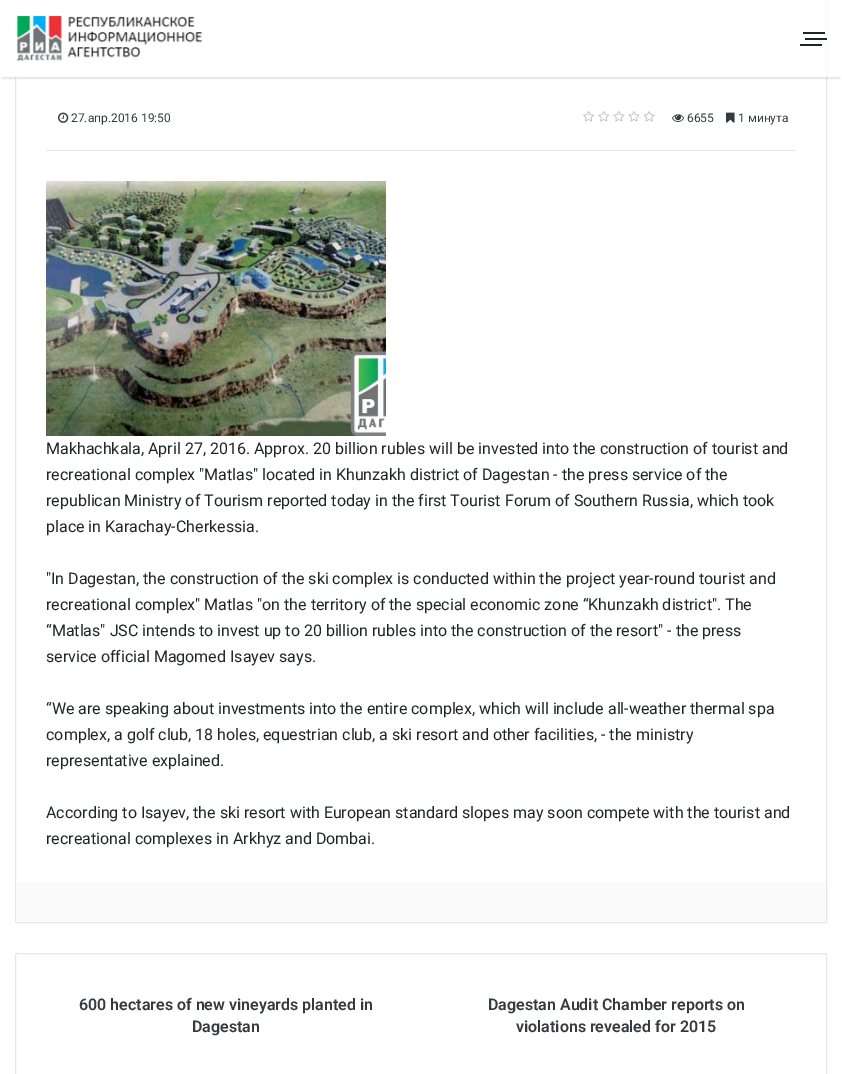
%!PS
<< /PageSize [842 1074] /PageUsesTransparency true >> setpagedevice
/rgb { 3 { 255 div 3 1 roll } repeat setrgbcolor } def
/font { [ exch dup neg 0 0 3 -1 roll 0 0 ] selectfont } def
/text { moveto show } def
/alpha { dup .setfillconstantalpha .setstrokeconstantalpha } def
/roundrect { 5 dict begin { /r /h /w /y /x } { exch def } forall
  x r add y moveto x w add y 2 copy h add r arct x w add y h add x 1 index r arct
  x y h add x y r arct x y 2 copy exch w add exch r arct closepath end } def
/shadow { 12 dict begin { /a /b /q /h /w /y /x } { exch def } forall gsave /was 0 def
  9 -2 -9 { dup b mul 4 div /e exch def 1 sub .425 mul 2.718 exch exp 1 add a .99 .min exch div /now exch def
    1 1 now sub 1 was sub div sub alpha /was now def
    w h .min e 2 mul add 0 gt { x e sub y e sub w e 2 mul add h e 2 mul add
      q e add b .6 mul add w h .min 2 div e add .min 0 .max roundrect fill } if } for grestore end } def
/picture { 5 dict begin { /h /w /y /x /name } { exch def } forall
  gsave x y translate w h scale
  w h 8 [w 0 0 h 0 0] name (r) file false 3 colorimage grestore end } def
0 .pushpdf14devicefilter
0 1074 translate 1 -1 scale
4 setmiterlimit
255 255 255 rgb
0 0 842 1074 rectfill
230 230 230 rgb
15.5 -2.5 811 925 1.5 roundrect stroke
gsave
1 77 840 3 rectclip
0 0 0 rgb
2 6 838 73 0 1 0.1 shadow
grestore
0.95 alpha
255 255 255 rgb
15 0 812 77 rectfill
1 alpha
(img_01.rgb) 16 15 187 47 picture
33 37 41 rgb
805 38 22 2 rectfill
803 32 22 2 rectfill
800 44 22 2 rectfill
230 230 230 rgb
46 150 750 1 rectfill
(img_02.rgb) 58 112 11 11 picture
(img_03.rgb) 583 111 72 11 picture
(img_04.rgb) 672 114 12 8 picture
(img_05.rgb) 726 112 9 11 picture
(img_06.rgb) 46 181 340 255 picture
250 250 250 rgb
16 882 810 40 rectfill
230 230 230 rgb
15.5 953.5 811 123 1.5 roundrect stroke
/Roboto-Regular 12 font
52 58 64 rgb
(27.апр.2016 19:50) 71 122 text
(6655) 687 122 text
(1 минута) 738 122 text
/Roboto-Regular 16 font
33 37 41 rgb
(Makhachkala, April 27, 2016. Approx. 20 billion rubles will be invested into the construction of tourist and) 46 454 text
(recreational complex "Matlas" located in Khunzakh district of Dagestan - the press service of the) 46 480 text
(republican Ministry of Tourism reported today in the first Tourist Forum of Southern Russia, which took) 46 506 text
(place in Karachay-Cherkessia.) 46 532 text
("In Dagestan, the construction of the ski complex is conducted within the project year-round tourist and) 46 584 text
(recreational complex" Matlas "on the territory of the special economic zone “Khunzakh district". The) 46 610 text
(“Matlas" JSC intends to invest up to 20 billion rubles into the construction of the resort" - the press) 46 636 text
(service official Magomed Isayev says.) 46 662 text
(“We are speaking about investments into the entire complex, which will include all-weather thermal spa) 46 714 text
(complex, a golf club, 18 holes, equestrian club, a ski resort and other facilities, - the ministry) 46 740 text
(representative explained.) 46 766 text
(According to Isayev, the ski resort with European standard slopes may soon compete with the tourist and) 46 818 text
(recreational complexes in Arkhyz and Dombai.) 46 844 text
/Roboto-SemiBold 16 font
52 58 64 rgb
(600 hectares of new vineyards planted in) 79 1010 text
(Dagestan) 192 1032 text
(Dagestan Audit Chamber reports on) 488 1010 text
(violations revealed for 2015) 516 1032 text
.poppdf14devicefilter showpage
